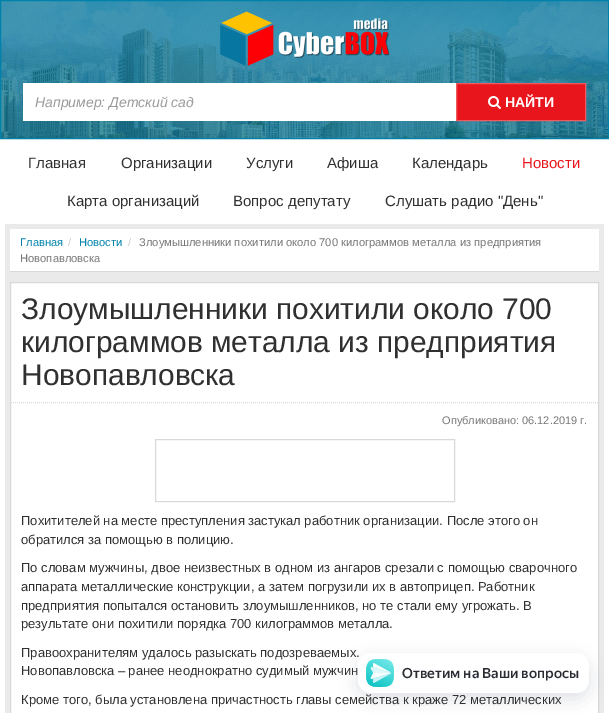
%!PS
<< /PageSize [609 713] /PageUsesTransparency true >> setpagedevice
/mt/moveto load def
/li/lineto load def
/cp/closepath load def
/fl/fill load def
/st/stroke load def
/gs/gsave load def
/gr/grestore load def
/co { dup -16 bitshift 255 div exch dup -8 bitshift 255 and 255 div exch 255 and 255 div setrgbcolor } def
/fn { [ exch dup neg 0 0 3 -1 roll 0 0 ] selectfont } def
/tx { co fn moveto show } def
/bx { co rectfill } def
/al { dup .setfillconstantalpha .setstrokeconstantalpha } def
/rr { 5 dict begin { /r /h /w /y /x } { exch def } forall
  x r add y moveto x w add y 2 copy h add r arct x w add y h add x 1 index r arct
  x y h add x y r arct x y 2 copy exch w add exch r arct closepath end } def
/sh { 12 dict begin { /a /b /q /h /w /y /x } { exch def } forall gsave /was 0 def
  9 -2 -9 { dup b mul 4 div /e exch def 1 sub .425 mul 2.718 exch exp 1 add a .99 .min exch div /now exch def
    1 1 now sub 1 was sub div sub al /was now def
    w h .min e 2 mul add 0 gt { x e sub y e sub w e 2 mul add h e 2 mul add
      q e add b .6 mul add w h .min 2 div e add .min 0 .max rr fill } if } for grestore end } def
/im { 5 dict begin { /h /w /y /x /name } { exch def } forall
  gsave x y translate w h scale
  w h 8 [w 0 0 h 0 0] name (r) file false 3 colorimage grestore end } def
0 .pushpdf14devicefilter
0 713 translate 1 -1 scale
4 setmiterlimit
0 0 609 713 16#FFFFFF bx
(media/1.raw) 1 1 607 137 im
16#0082AB co
.5 .5 608 138 rectstroke
(media/2.raw) 220 11 169 55 im
23 83 433 38 16#FFFFFF bx
16#E9151C co
456.5 83.5 mt 585.5 83.5 li 585.5 120.5 li 456.5 120.5 li cp gs fl gr
16#F05A5F co
st
(media/3.raw) 488 96 13 13 im
5 224 599 489 16#EAEAEA bx
10 229 589 42 16#FFFFFF bx
10 271 589 1 16#D9D9D9 bx
16#FFFFFF co
10.5 282.5 mt 598.5 282.5 li 598.5 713.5 li 10.5 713.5 li cp gs fl gr
16#D9D9D9 co
st
[1 1] 0 setdash
11 402.5 mt 598 402.5 li st
[] 0 setdash
155.5 439.5 299 62 rectstroke
16#0E152F co
358 659 231 40 13 9 .13 sh
(Например: Детский сад) 35 107 /LiberationSans-Italic 14 16#999999 tx
(НАЙТИ) 505 107 /LiberationSans-Bold 14 16#FFFFFF tx
(Главная) 28 168 /LiberationSans-Regular 15 16#303030 tx
(Организации) 121 168 /LiberationSans-Regular 15 16#303030 tx
(Услуги) 246 168 /LiberationSans-Regular 15 16#303030 tx
(Афиша) 327 168 /LiberationSans-Regular 15 16#303030 tx
(Календарь) 412 168 /LiberationSans-Regular 15 16#303030 tx
(Новости) 522 168 /LiberationSans-Regular 15 16#E9151C tx
(Карта организаций) 67 206 /LiberationSans-Regular 15 16#303030 tx
(Вопрос депутату) 233 206 /LiberationSans-Regular 15 16#303030 tx
(Слушать радио "День") 385 206 /LiberationSans-Regular 15 16#303030 tx
(Главная) 20 246 /LiberationSans-Regular 11.2 16#0082AB tx
(/) 68 246 /LiberationSans-Regular 11.2 16#CCCCCC tx
(Новости) 79 246 /LiberationSans-Regular 11.2 16#0082AB tx
(/) 128 246 /LiberationSans-Regular 11.2 16#CCCCCC tx
(Злоумышленники похитили около 700 килограммов металла из предприятия) 139 246 /LiberationSans-Regular 11.2 16#777777 tx
(Новопавловска) 20 262 /LiberationSans-Regular 11.2 16#777777 tx
(Злоумышленники похитили около 700) 21 319 /LiberationSans-Regular 29.9 16#303030 tx
(килограммов металла из предприятия) 21 352 /LiberationSans-Regular 29.9 16#303030 tx
(Новопавловска) 21 385 /LiberationSans-Regular 29.9 16#303030 tx
(Опубликовано: 06.12.2019 г.) 442 424 /LiberationSans-Regular 11 16#777777 tx
(Похитителей на месте преступления застукал работник организации. После этого он) 21 525 /LiberationSans-Regular 13 16#303030 tx
(обратился за помощью в полицию.) 21 544 /LiberationSans-Regular 13 16#303030 tx
(По словам мужчины, двое неизвестных в одном из ангаров срезали с помощью сварочного) 21 572 /LiberationSans-Regular 13 16#303030 tx
(аппарата металлические конструкции, а затем погрузили их в автоприцеп. Работник) 21 591 /LiberationSans-Regular 13 16#303030 tx
(предприятия попытался остановить злоумышленников, но те стали ему угрожать. В) 21 610 /LiberationSans-Regular 13 16#303030 tx
(результате они похитили порядка 700 килограммов металла.) 21 628 /LiberationSans-Regular 13 16#303030 tx
(Правоохранителям удалось разыскать подозреваемых.) 21 657 /LiberationSans-Regular 13 16#303030 tx
(Новопавловска – ранее неоднократно судимый мужчин) 21 675 /LiberationSans-Regular 13 16#303030 tx
(Кроме того, была установлена причастность главы семейства к краже 72 металлических) 21 704 /LiberationSans-Regular 13 16#303030 tx
16#FFFFFF co
358 653 231 40 13 rr fl
(media/4.raw) 366 659 28 28 im
(Ответим на Ваши вопросы) 402 678 /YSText-Medium 14 16#292C33 tx
.poppdf14devicefilter showpage
